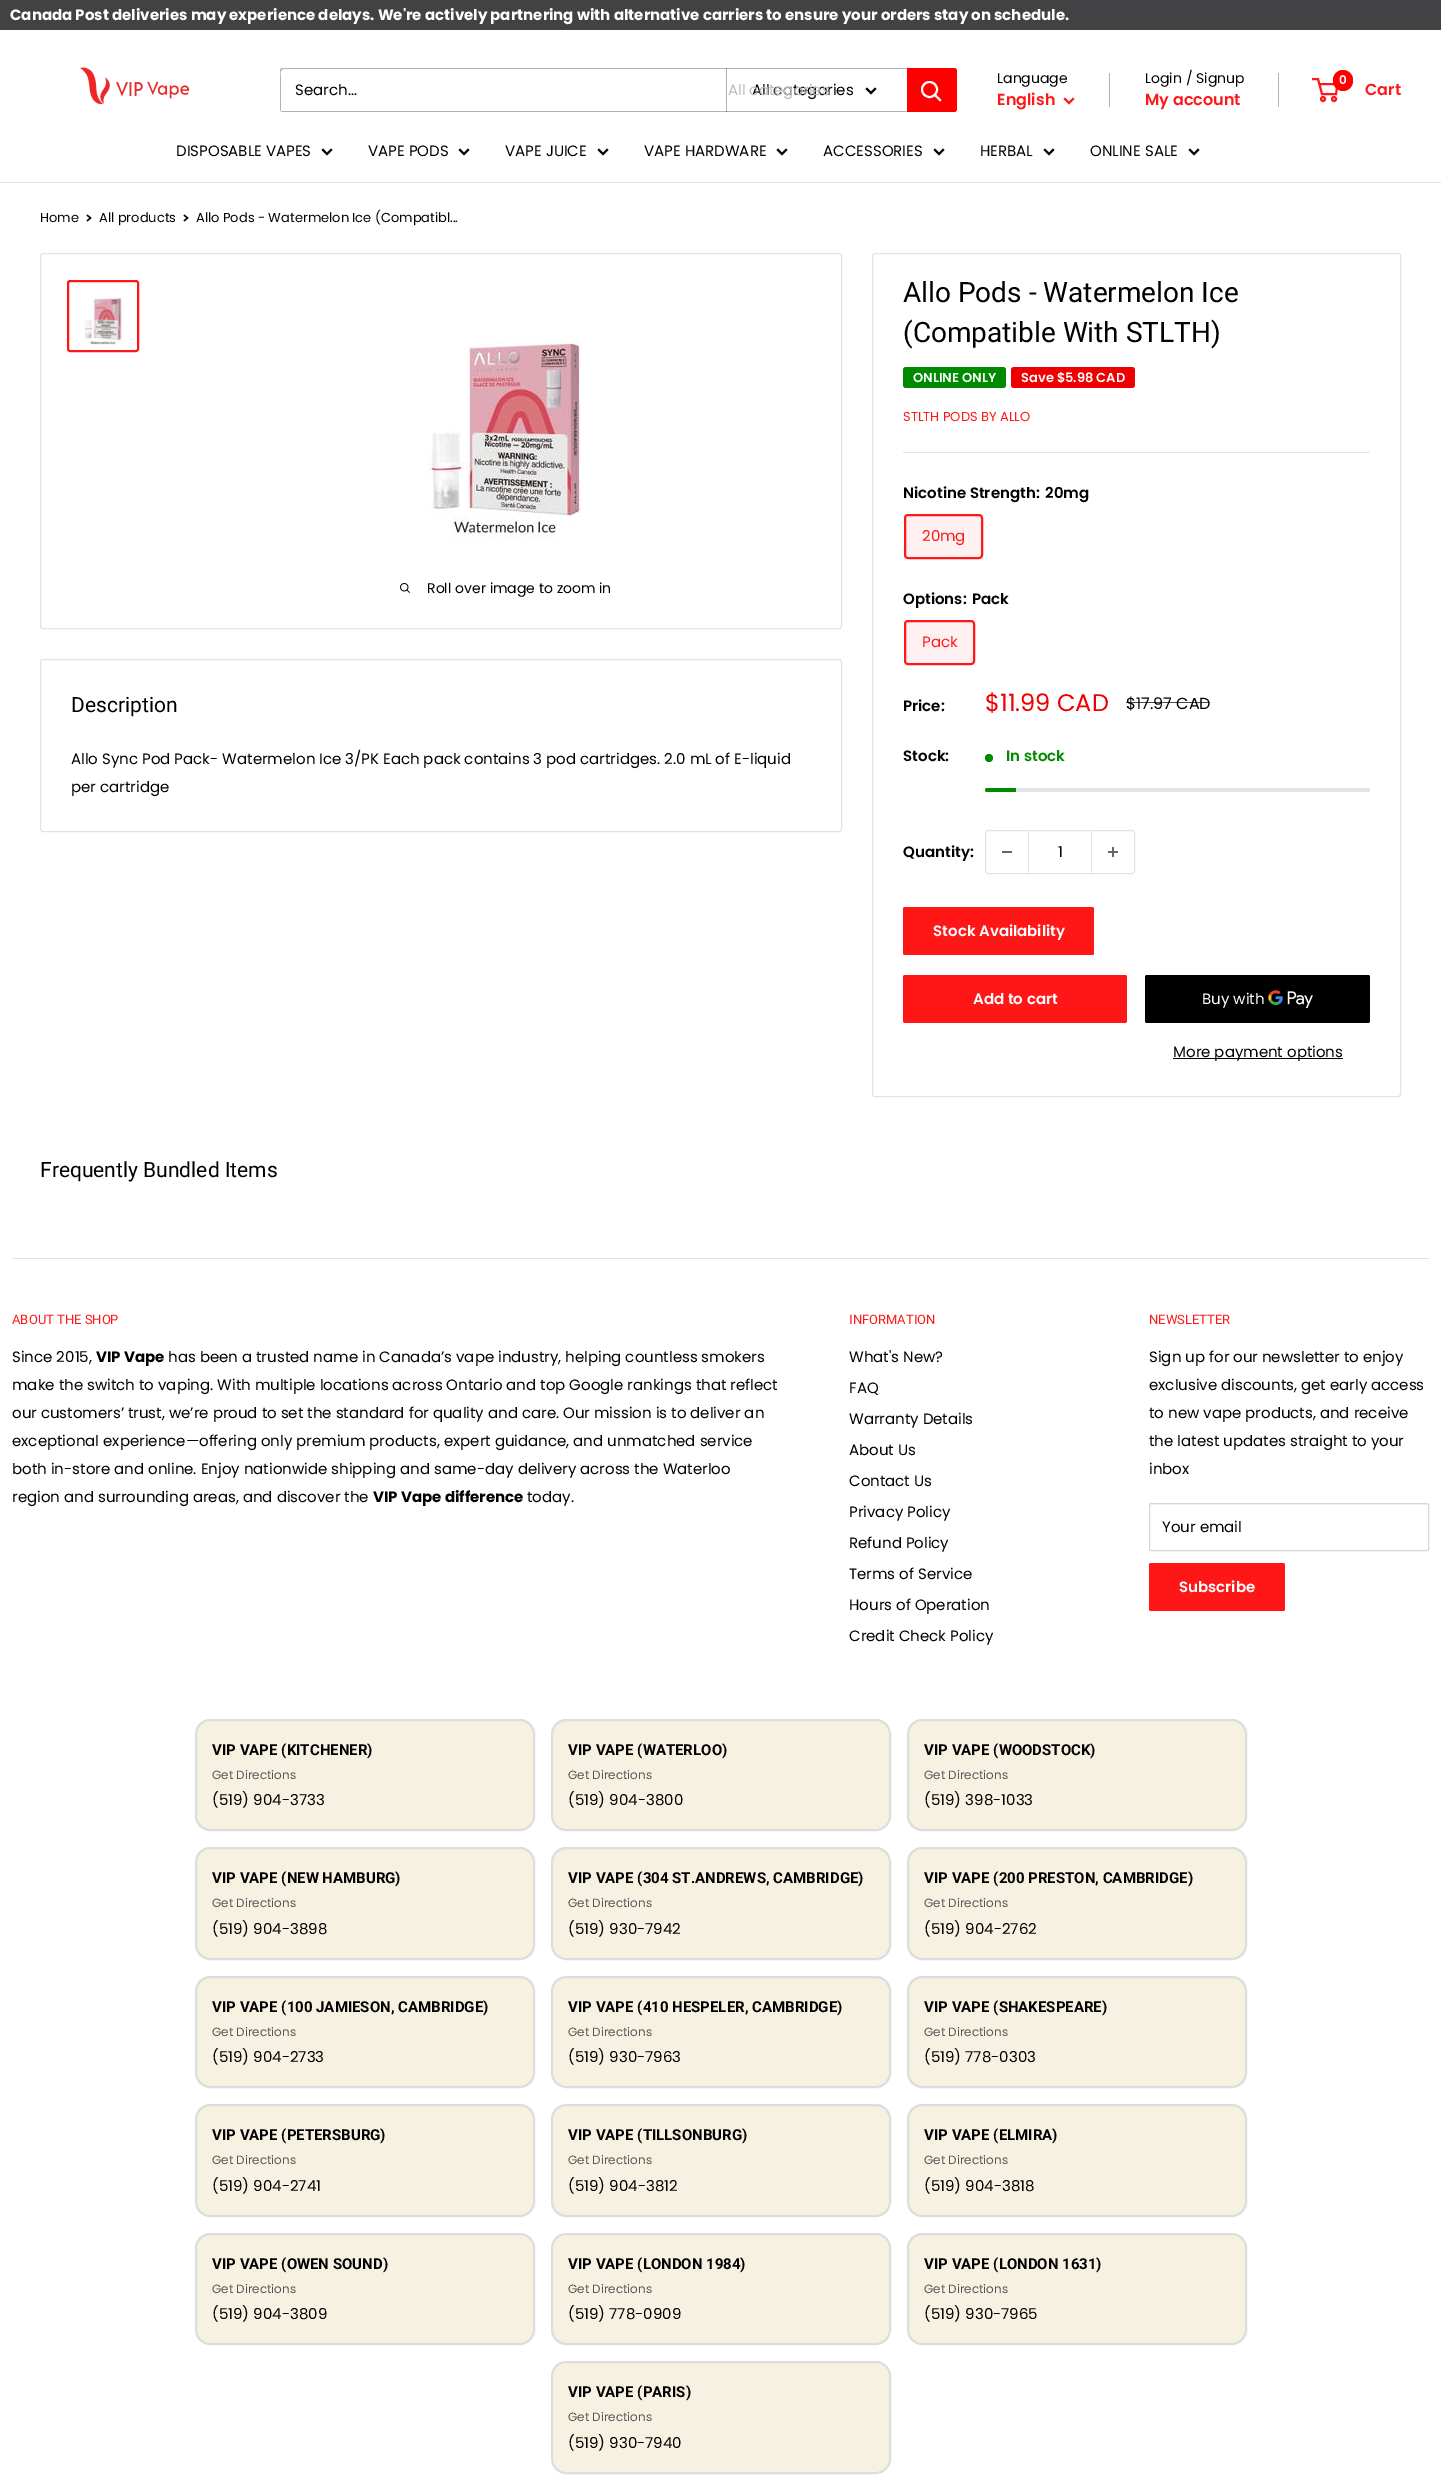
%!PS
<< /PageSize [1441 2490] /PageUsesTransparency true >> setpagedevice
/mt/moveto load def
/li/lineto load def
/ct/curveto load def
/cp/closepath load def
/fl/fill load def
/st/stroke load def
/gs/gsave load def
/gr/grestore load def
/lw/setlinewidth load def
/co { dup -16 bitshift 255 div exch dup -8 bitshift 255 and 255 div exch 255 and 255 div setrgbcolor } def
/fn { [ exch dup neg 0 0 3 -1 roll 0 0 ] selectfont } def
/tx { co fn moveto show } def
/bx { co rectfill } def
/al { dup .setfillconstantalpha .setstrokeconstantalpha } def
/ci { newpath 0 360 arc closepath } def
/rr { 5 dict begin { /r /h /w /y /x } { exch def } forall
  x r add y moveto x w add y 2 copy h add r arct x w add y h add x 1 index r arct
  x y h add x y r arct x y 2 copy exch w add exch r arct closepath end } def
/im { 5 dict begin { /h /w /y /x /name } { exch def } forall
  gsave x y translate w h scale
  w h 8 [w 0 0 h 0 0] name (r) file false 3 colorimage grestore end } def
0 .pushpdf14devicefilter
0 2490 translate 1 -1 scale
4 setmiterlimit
0 0 1441 2490 16#FFFFFF bx
0 0 1441 30 16#424245 bx
(media/1.raw) 80 67 110 38 im
16#B3B3B3 co
281 111 mt 281 112 282 112 283 112 ct 954 112 li 956 112 957 111 957 109 ct 957 71 li 957 70 957 69 956 69 ct 956 102 li 956 104 958 111 953 111 ct cp fl
284 69 mt 956 69 li 956 68 955 68 954 68 ct 283 68 li 281 68 280 69 280 71 ct 280 109 li 280 110 280 111 281 111 ct 281 78 li 281 76 279 69 284 69 ct cp fl
0.3 al
726 68 1 44 16#000000 bx
1 al
2 lw
2 setlinecap
875 89 mt 871 93 li 867 89 li st
16#FF0000 co
907 68 mt 954 68 li 955.5 68 957 69.5 957 71 ct 957 109 li 957 110.5 955.5 112 954 112 ct 907 112 li cp fl
16#FFFFFF co
940 100 mt 935 95 li st
0 setlinecap
929.5 89.5 7.5 ci st
16#FF1616 co
2 setlinecap
1073 99 mt 1069 103 li 1065 99 li st
1109 73 1 34 16#B3B3B3 bx
1278 73 1 34 16#B3B3B3 bx
16#FF1616 co
0 setlinecap
1323 99 2 ci st
1334 99 2 ci st
1319.5 84 mt 1337.5 84 li 1336 94 li 1322 94 li 1318 79 li 1312 79 li st
16#FF0000 co
1333 70 20 21 10 rr fl
0 182 1441 1 16#E1E3E4 bx
16#000000 co
2 setlinecap
331 150 mt 327 154 li 323 150 li st
468 150 mt 464 154 li 460 150 li st
607 150 mt 603 154 li 599 150 li st
786 150 mt 782 154 li 778 150 li st
943 150 mt 939 154 li 935 150 li st
1053 150 mt 1049 154 li 1045 150 li st
1198 150 mt 1194 154 li 1190 150 li st
1.3 lw
87.5 215.5 mt 90.5 218 li 87.5 220.5 li st
184.5 215.5 mt 187.5 218 li 184.5 220.5 li st
16#E1E3E4 co
1 lw
0 setlinecap
40.5 253.5 801 375 2.5 rr st
16#FF1616 co
2 lw
68 281 70 70 2 rr st
(media/2.raw) 84 297 38 48 im
(media/3.raw) 428 340 153 200 im
(media/4.raw) 400 583 10 10 im
16#E1E3E4 co
1 lw
872.5 253.5 528 843 2.5 rr st
16#008A00 co
903 367 103 21 3 rr fl
16#EE0000 co
1011 367 124 21 3 rr fl
903 452 467 1 16#E1E3E4 bx
16#FF1616 co
904.5 514.5 78 44 3.5 rr st
0.06 al
905 515 77 43 16#FF1616 bx
1 al
905.5 515.5 76 42 2.5 rr st
904.5 620.5 70 44 3.5 rr st
0.06 al
905 621 69 43 16#FF1616 bx
1 al
905.5 621.5 68 42 2.5 rr st
16#008A00 co
989 758 4 ci fl
16#E1E3E4 co
985 788 385 4 2 rr fl
16#008A00 co
987 788 mt 1016 788 li 1016 792 li 987 792 li 986 792 985 791 985 790 ct 985 789 986 788 987 788 ct cp fl
16#E1E3E4 co
985.5 830.5 149 43 2.5 rr st
1002 851 10 2 16#666666 bx
1029 831 62 1 16#F3F4F4 bx
1091 831 1 42 16#E1E3E4 bx
1028 831 1 42 16#E1E3E4 bx
(media/5.raw) 1108 847 10 10 im
16#FF1616 co
903 907 191 48 2 rr fl
903 975 224 48 2 rr fl
16#000000 co
1145 975 225 48 2 rr fl
(media/6.raw) 1268 990 45 18 im
1173 1058 170 1 16#000000 bx
16#E1E3E4 co
40.5 659.5 801 172 2.5 rr st
12 1258 1417 1 16#E1E3E4 bx
16#F8F8F8 co
1151 1505 mt 1427 1505 li 1428 1505 1428 1505 1428 1506 ct 1428 1505 1428 1504 1427 1504 ct 1151 1504 li 1150 1504 li 1150 1506 li 1150 1505 1150 1505 1151 1505 ct cp fl
16#D4D6D8 co
1149.5 1503.5 279 47 1.5 rr st
16#FF1616 co
1149 1563 136 48 2 rr fl
16#F7F1E1 co
196 1720 338 110 14 rr gs fl gr
16#DDDDDD co
2 lw
st
16#F7F1E1 co
552 1720 338 110 14 rr gs fl gr
16#DDDDDD co
st
16#F7F1E1 co
908 1720 338 110 14 rr gs fl gr
16#DDDDDD co
st
16#F7F1E1 co
196 1848 338 111 14 rr gs fl gr
16#DDDDDD co
st
16#F7F1E1 co
552 1848 338 111 14 rr gs fl gr
16#DDDDDD co
st
16#F7F1E1 co
908 1848 338 111 14 rr gs fl gr
16#DDDDDD co
st
16#F7F1E1 co
196 1977 338 110 14 rr gs fl gr
16#DDDDDD co
st
16#F7F1E1 co
552 1977 338 110 14 rr gs fl gr
16#DDDDDD co
st
16#F7F1E1 co
908 1977 338 110 14 rr gs fl gr
16#DDDDDD co
st
16#F7F1E1 co
196 2105 338 111 14 rr gs fl gr
16#DDDDDD co
st
16#F7F1E1 co
552 2105 338 111 14 rr gs fl gr
16#DDDDDD co
st
16#F7F1E1 co
908 2105 338 111 14 rr gs fl gr
16#DDDDDD co
st
16#F7F1E1 co
196 2234 338 110 14 rr gs fl gr
16#DDDDDD co
st
16#F7F1E1 co
552 2234 338 110 14 rr gs fl gr
16#DDDDDD co
st
16#F7F1E1 co
908 2234 338 110 14 rr gs fl gr
16#DDDDDD co
st
16#F7F1E1 co
552 2362 338 111 14 rr gs fl gr
16#DDDDDD co
st
(Canada Post deliveries may experience delays. We're actively partnering with alternative carriers to ensure your orders stay on schedule.) 10 20 /Poppins-Bold 15 16#FFFFFF tx
(Search...) 295 95 /Poppins-Regular 15 16#000000 tx
(All categories) 752 95 /Poppins-Regular 15 16#000000 tx
(All categories) 728 95 /Poppins-Regular 15 16#BBBBBB tx
(Language) 997 83 /Poppins-Regular 14 16#000000 tx
(English) 997 105 /Poppins-SemiBold 16 16#FF1616 tx
(Login / Signup) 1145 83 /Poppins-Regular 14 16#000000 tx
(My account) 1145 105 /Poppins-SemiBold 16 16#FF1616 tx
(0) 1339 84 /Poppins-SemiBold 12 16#FFFFFF tx
(Cart) 1365 95 /Poppins-SemiBold 16 16#FF1616 tx
(DISPOSABLE VAPES) 176 156 /Poppins-Regular 15 16#000000 tx
(VAPE PODS) 368 156 /Poppins-Regular 15 16#000000 tx
(VAPE JUICE) 505 156 /Poppins-Regular 15 16#000000 tx
(VAPE HARDWARE) 644 156 /Poppins-Regular 15 16#000000 tx
(ACCESSORIES) 823 156 /Poppins-Regular 15 16#000000 tx
(HERBAL) 980 156 /Poppins-Regular 15 16#000000 tx
(ONLINE SALE) 1090 156 /Poppins-Regular 15 16#000000 tx
(Home) 40 222 /Poppins-Regular 13 16#000000 tx
(All products) 99 222 /Poppins-Regular 13 16#000000 tx
(Allo Pods - Watermelon Ice \(Compatibl...) 196 222 /Poppins-Regular 13 16#000000 tx
(Roll over image to zoom in) 427 593 /Poppins-Regular 14 16#000000 tx
(Allo Pods - Watermelon Ice) 903 302 /Roboto-Regular 28 16#000000 tx
(\(Compatible With STLTH\)) 903 342 /Roboto-Regular 28 16#000000 tx
(ONLINE ONLY) 913 382 /Poppins-SemiBold 13 16#FFFFFF tx
(Save $5.98 CAD) 1021 382 /Poppins-SemiBold 13 16#FFFFFF tx
(STLTH PODS BY ALLO) 903 421 /Poppins-Regular 13 16#FF1616 tx
(Nicotine Strength:) 903 498 /Poppins-SemiBold 15 16#000000 tx
(20mg) 1045 498 /Poppins-SemiBold 15 16#000000 tx
(20mg) 922 541 /Poppins-Regular 15 16#FF1616 tx
(Options:) 903 604 /Poppins-SemiBold 15 16#000000 tx
(Pack) 972 604 /Poppins-SemiBold 15 16#000000 tx
(Pack) 922 647 /Poppins-Regular 15 16#FF1616 tx
(Price:) 903 711 /Poppins-SemiBold 15 16#000000 tx
($11.99 CAD) 985 711 /Poppins-Regular 24 16#EE0000 tx
($17.97 CAD) 1126 709 /Poppins-Regular 16 16#000000 tx
0.7 al
1126 702 84 1 16#000000 bx
1 al
(Stock:) 903 761 /Poppins-SemiBold 15 16#000000 tx
(In stock) 1006 761 /Poppins-SemiBold 15 16#008A00 tx
(Quantity:) 903 857 /Poppins-SemiBold 15 16#000000 tx
(1) 1058 857 /Poppins-Regular 15 16#000000 tx
(Stock Availability) 933 936 /Poppins-SemiBold 15 16#FFFFFF tx
(Add to cart) 973 1004 /Poppins-SemiBold 15 16#FFFFFF tx
(Buy with) 1202 1004 /Poppins-Regular 15 16#FFFFFF tx
(More payment options) 1173 1057 /Poppins-Regular 15 16#000000 tx
(Description) 71 712 /Roboto-Regular 21 16#000000 tx
(Allo Sync Pod Pack- Watermelon Ice 3/PK Each pack contains 3 pod cartridges. 2.0 mL of E-liquid) 71 764 /Poppins-Regular 15 16#000000 tx
(per cartridge) 71 792 /Poppins-Regular 15 16#000000 tx
(Frequently Bundled Items) 40 1177 /Roboto-Regular 21 16#000000 tx
(ABOUT THE SHOP) 12 1324 /Roboto-Regular 13 16#FF1616 tx
(Since 2015,) 12 1362 /Poppins-Regular 15 16#000000 tx
(VIP Vape) 96 1362 /Poppins-Bold 15 16#000000 tx
(has been a trusted name in Canada’s vape industry, helping countless smokers) 168 1362 /Poppins-Regular 15 16#000000 tx
(make the switch to vaping. With multiple locations across Ontario and top Google rankings that reflect) 12 1390 /Poppins-Regular 15 16#000000 tx
(our customers’ trust, we’re proud to set the standard for quality and care. Our mission is to deliver an) 12 1418 /Poppins-Regular 15 16#000000 tx
(exceptional experience—offering only premium products, expert guidance, and unmatched service) 12 1446 /Poppins-Regular 15 16#000000 tx
(both in-store and online. Enjoy nationwide shipping and same-day delivery across the Waterloo) 12 1474 /Poppins-Regular 15 16#000000 tx
(region and surrounding areas, and discover the) 12 1502 /Poppins-Regular 15 16#000000 tx
(VIP Vape difference) 373 1502 /Poppins-Bold 15 16#000000 tx
(today.) 527 1502 /Poppins-Regular 15 16#000000 tx
(INFORMATION) 849 1324 /Roboto-Regular 13 16#FF1616 tx
(What's New?) 849 1362 /Poppins-Regular 15 16#000000 tx
(FAQ) 849 1393 /Poppins-Regular 15 16#000000 tx
(Warranty Details) 849 1424 /Poppins-Regular 15 16#000000 tx
(About Us) 849 1455 /Poppins-Regular 15 16#000000 tx
(Contact Us) 849 1486 /Poppins-Regular 15 16#000000 tx
(Privacy Policy) 849 1517 /Poppins-Regular 15 16#000000 tx
(Refund Policy) 849 1548 /Poppins-Regular 15 16#000000 tx
(Terms of Service) 849 1579 /Poppins-Regular 15 16#000000 tx
(Hours of Operation) 849 1610 /Poppins-Regular 15 16#000000 tx
(Credit Check Policy) 849 1641 /Poppins-Regular 15 16#000000 tx
(NEWSLETTER) 1149 1324 /Roboto-Regular 13 16#FF1616 tx
(Sign up for our newsletter to enjoy) 1149 1362 /Poppins-Regular 15 16#000000 tx
(exclusive discounts, get early access) 1149 1390 /Poppins-Regular 15 16#000000 tx
(to new vape products, and receive) 1149 1418 /Poppins-Regular 15 16#000000 tx
(the latest updates straight to your) 1149 1446 /Poppins-Regular 15 16#000000 tx
(inbox) 1149 1474 /Poppins-Regular 15 16#000000 tx
(Your email) 1162 1532 /Poppins-Regular 15 16#000000 tx
(Subscribe) 1179 1592 /Poppins-SemiBold 15 16#FFFFFF tx
(VIP VAPE \(KITCHENER\)) 212 1755 /Roboto-Bold 15 16#000000 tx
(Get Directions) 212 1779 /Poppins-Regular 12 16#555555 tx
(\(519\) 904-3733) 212 1805 /Poppins-Regular 15 16#000000 tx
(VIP VAPE \(WATERLOO\)) 568 1755 /Roboto-Bold 15 16#000000 tx
(Get Directions) 568 1779 /Poppins-Regular 12 16#555555 tx
(\(519\) 904-3800) 568 1805 /Poppins-Regular 15 16#000000 tx
(VIP VAPE \(WOODSTOCK\)) 924 1755 /Roboto-Bold 15 16#000000 tx
(Get Directions) 924 1779 /Poppins-Regular 12 16#555555 tx
(\(519\) 398-1033) 924 1805 /Poppins-Regular 15 16#000000 tx
(VIP VAPE \(NEW HAMBURG\)) 212 1883 /Roboto-Bold 15 16#000000 tx
(Get Directions) 212 1907 /Poppins-Regular 12 16#555555 tx
(\(519\) 904-3898) 212 1934 /Poppins-Regular 15 16#000000 tx
(VIP VAPE \(304 ST.ANDREWS, CAMBRIDGE\)) 568 1883 /Roboto-Bold 15 16#000000 tx
(Get Directions) 568 1907 /Poppins-Regular 12 16#555555 tx
(\(519\) 930-7942) 568 1934 /Poppins-Regular 15 16#000000 tx
(VIP VAPE \(200 PRESTON, CAMBRIDGE\)) 924 1883 /Roboto-Bold 15 16#000000 tx
(Get Directions) 924 1907 /Poppins-Regular 12 16#555555 tx
(\(519\) 904-2762) 924 1934 /Poppins-Regular 15 16#000000 tx
(VIP VAPE \(100 JAMIESON, CAMBRIDGE\)) 212 2012 /Roboto-Bold 15 16#000000 tx
(Get Directions) 212 2036 /Poppins-Regular 12 16#555555 tx
(\(519\) 904-2733) 212 2062 /Poppins-Regular 15 16#000000 tx
(VIP VAPE \(410 HESPELER, CAMBRIDGE\)) 568 2012 /Roboto-Bold 15 16#000000 tx
(Get Directions) 568 2036 /Poppins-Regular 12 16#555555 tx
(\(519\) 930-7963) 568 2062 /Poppins-Regular 15 16#000000 tx
(VIP VAPE \(SHAKESPEARE\)) 924 2012 /Roboto-Bold 15 16#000000 tx
(Get Directions) 924 2036 /Poppins-Regular 12 16#555555 tx
(\(519\) 778-0303) 924 2062 /Poppins-Regular 15 16#000000 tx
(VIP VAPE \(PETERSBURG\)) 212 2140 /Roboto-Bold 15 16#000000 tx
(Get Directions) 212 2164 /Poppins-Regular 12 16#555555 tx
(\(519\) 904-2741) 212 2191 /Poppins-Regular 15 16#000000 tx
(VIP VAPE \(TILLSONBURG\)) 568 2140 /Roboto-Bold 15 16#000000 tx
(Get Directions) 568 2164 /Poppins-Regular 12 16#555555 tx
(\(519\) 904-3812) 568 2191 /Poppins-Regular 15 16#000000 tx
(VIP VAPE \(ELMIRA\)) 924 2140 /Roboto-Bold 15 16#000000 tx
(Get Directions) 924 2164 /Poppins-Regular 12 16#555555 tx
(\(519\) 904-3818) 924 2191 /Poppins-Regular 15 16#000000 tx
(VIP VAPE \(OWEN SOUND\)) 212 2269 /Roboto-Bold 15 16#000000 tx
(Get Directions) 212 2293 /Poppins-Regular 12 16#555555 tx
(\(519\) 904-3809) 212 2319 /Poppins-Regular 15 16#000000 tx
(VIP VAPE \(LONDON 1984\)) 568 2269 /Roboto-Bold 15 16#000000 tx
(Get Directions) 568 2293 /Poppins-Regular 12 16#555555 tx
(\(519\) 778-0909) 568 2319 /Poppins-Regular 15 16#000000 tx
(VIP VAPE \(LONDON 1631\)) 924 2269 /Roboto-Bold 15 16#000000 tx
(Get Directions) 924 2293 /Poppins-Regular 12 16#555555 tx
(\(519\) 930-7965) 924 2319 /Poppins-Regular 15 16#000000 tx
(VIP VAPE \(PARIS\)) 568 2397 /Roboto-Bold 15 16#000000 tx
(Get Directions) 568 2421 /Poppins-Regular 12 16#555555 tx
(\(519\) 930-7940) 568 2448 /Poppins-Regular 15 16#000000 tx
.poppdf14devicefilter showpage
